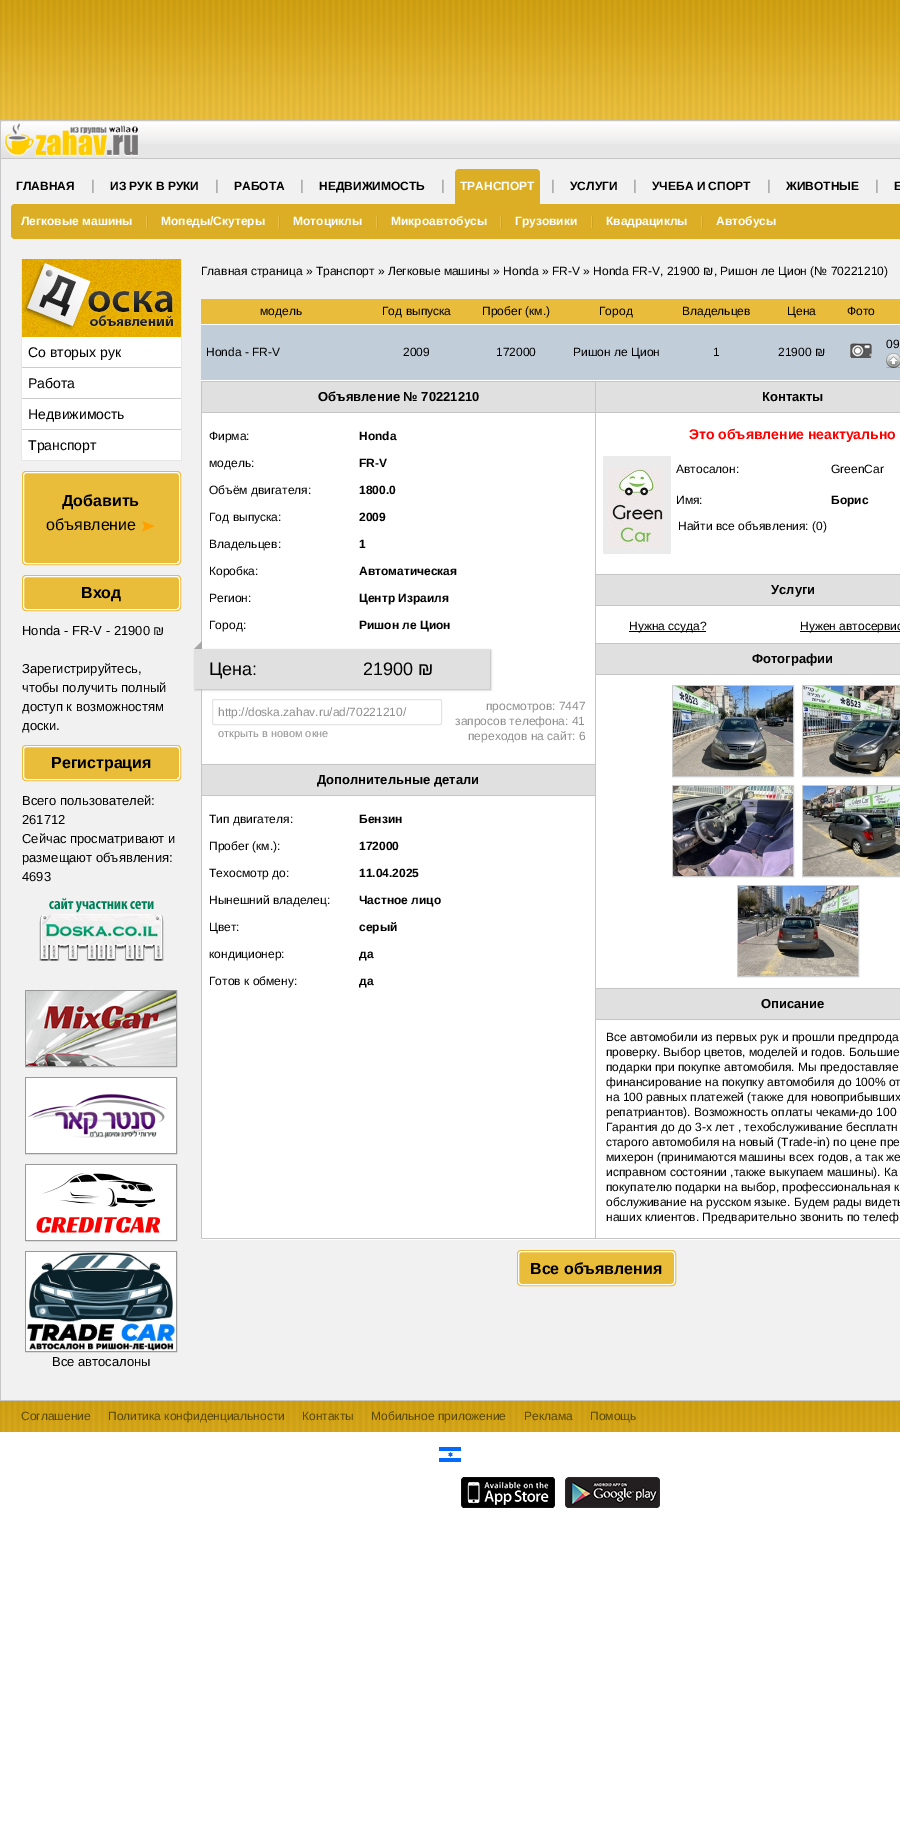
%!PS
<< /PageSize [900 1838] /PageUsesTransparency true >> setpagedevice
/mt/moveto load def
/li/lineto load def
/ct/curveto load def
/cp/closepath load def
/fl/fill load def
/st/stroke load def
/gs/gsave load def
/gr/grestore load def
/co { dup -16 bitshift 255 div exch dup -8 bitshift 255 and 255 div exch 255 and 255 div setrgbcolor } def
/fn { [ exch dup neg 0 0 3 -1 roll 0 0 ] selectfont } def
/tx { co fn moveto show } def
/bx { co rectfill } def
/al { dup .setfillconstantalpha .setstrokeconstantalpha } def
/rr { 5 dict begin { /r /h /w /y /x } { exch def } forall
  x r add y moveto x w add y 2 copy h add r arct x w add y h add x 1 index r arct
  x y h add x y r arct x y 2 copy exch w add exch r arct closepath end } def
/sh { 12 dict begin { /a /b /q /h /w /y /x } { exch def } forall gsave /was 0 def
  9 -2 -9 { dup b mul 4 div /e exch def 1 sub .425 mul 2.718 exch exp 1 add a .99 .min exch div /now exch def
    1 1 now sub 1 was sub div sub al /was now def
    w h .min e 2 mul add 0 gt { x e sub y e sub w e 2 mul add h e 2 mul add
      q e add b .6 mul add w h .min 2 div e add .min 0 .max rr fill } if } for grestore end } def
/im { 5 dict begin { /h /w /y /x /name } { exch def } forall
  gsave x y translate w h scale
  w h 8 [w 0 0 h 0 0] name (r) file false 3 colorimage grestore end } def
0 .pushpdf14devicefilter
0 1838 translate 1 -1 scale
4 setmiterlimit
0 0 900 1838 16#FFFFFF bx
(media/1.raw) 0 0 900 120 im
138 144 762 14 16#E6E6E6 bx
(media/2.raw) 1 121 899 23 im
16#C6C6C6 co
.5 120.5 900 38 rectstroke
(media/3.raw) 1 123 137 35 im
1 159 899 1241 16#F1F1F1 bx
0 159 1 80 16#C6C6C6 bx
16#DCAE25 co
459 169 mt 536 169 li 538 169 540 171 540 173 ct 540 204 li 455 204 li 455 173 li 455 171 457 169 459 169 ct cp fl
11 204 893 35 4 rr fl
147 216 1 12 16#CEA322 bx
146 216 1 12 16#E9C044 bx
279 216 1 12 16#CEA322 bx
278 216 1 12 16#E9C044 bx
377 216 1 12 16#CEA322 bx
376 216 1 12 16#E9C044 bx
501 216 1 12 16#CEA322 bx
500 216 1 12 16#E9C044 bx
592 216 1 12 16#CEA322 bx
591 216 1 12 16#E9C044 bx
702 216 1 12 16#CEA322 bx
701 216 1 12 16#E9C044 bx
0 1400 900 1 16#C6C6C6 bx
0 239 1 1162 16#C6C6C6 bx
22 337 159 123 16#FFFFFF bx
181 259 1 202 16#E7E7E7 bx
21 460 161 1 16#E7E7E7 bx
21 259 1 202 16#E7E7E7 bx
(media/4.raw) 22 259 159 78 im
22 367 159 1 16#CCCCCC bx
22 398 159 1 16#CCCCCC bx
22 429 159 1 16#CCCCCC bx
16#E9BC3A co
22.5 471.5 158 93 3.5 rr st
23.5 472.5 156 91 3.5 rr gs fl gr
16#FFFFFF co
st
(media/5.raw) 142 521 13 11 im
16#E9BC3A co
22.5 575.5 158 35 3.5 rr st
23.5 576.5 156 33 3.5 rr gs fl gr
16#FFFFFF co
st
16#E9BC3A co
22.5 745.5 158 35 3.5 rr st
23.5 746.5 156 33 3.5 rr gs fl gr
16#FFFFFF co
st
(media/6.raw) 39 898 125 63 im
16#999999 co
25.5 990.5 151 76 rectstroke
(media/7.raw) 26 991 150 75 im
25.5 1077.5 151 76 rectstroke
(media/8.raw) 26 1078 150 75 im
25.5 1164.5 151 76 rectstroke
(media/9.raw) 26 1165 150 75 im
25.5 1251.5 151 100 rectstroke
(media/10.raw) 26 1252 150 99 im
201 324 699 1 16#FFFFFF bx
201 299 699 25 16#EABC3B bx
201 380 699 1 16#FFFFFF bx
201 325 699 55 16#C1CEDA bx
(media/11.raw) 850 343 22 15 im
(media/12.raw) 886 353 14 15 im
201 413 699 827 16#FFFFFF bx
595 1238 305 1 16#C5C5C5 bx
595 381 1 858 16#C5C5C5 bx
201 1238 395 1 16#C5C5C5 bx
201 381 1 858 16#C5C5C5 bx
202 382 393 30 16#E0E0E0 bx
202 381 393 1 16#C5C5C5 bx
202 412 393 1 16#C5C5C5 bx
16#B3B3B3 co
195 650 296 40 0 1 1 sh
194 649 296 40 16#E0E0E0 bx
16#A7A7A7 co
202 649 mt 194 649 li 202 641 li cp fl
16#E4E4E4 co
212.5 699.5 229 25 1.5 rr st
202 765 393 30 16#E0E0E0 bx
202 764 393 1 16#C5C5C5 bx
202 795 393 1 16#C5C5C5 bx
596 382 304 30 16#E0E0E0 bx
596 381 304 1 16#C5C5C5 bx
596 412 304 1 16#C5C5C5 bx
16#EBEBEB co
603 456 68 98 2 rr fl
(media/13.raw) 607 468 56 80 im
596 575 304 30 16#E0E0E0 bx
596 574 304 1 16#C5C5C5 bx
596 605 304 1 16#C5C5C5 bx
629 631 77 1 16#000000 bx
800 631 100 1 16#000000 bx
596 644 304 30 16#E0E0E0 bx
596 643 304 1 16#C5C5C5 bx
596 674 304 1 16#C5C5C5 bx
16#CCCCCC co
672.5 685.5 121 91 rectstroke
(media/14.raw) 673 686 120 90 im
802.5 685.5 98 91 rectstroke
(media/15.raw) 803 686 97 90 im
672.5 785.5 121 91 rectstroke
(media/16.raw) 673 786 120 90 im
802.5 785.5 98 91 rectstroke
(media/17.raw) 803 786 97 90 im
737.5 885.5 121 91 rectstroke
(media/18.raw) 738 886 120 90 im
596 989 304 30 16#E0E0E0 bx
596 988 304 1 16#C5C5C5 bx
596 1019 304 1 16#C5C5C5 bx
16#E9BC3A co
517.5 1250.5 158 35 3.5 rr st
518.5 1251.5 156 33 3.5 rr gs fl gr
16#FFFFFF co
st
(media/19.raw) 0 1401 900 31 im
(media/20.raw) 439 1447 22 15 im
(media/21.raw) 461 1477 94 31 im
(media/22.raw) 565 1477 95 31 im
(ГЛАВНАЯ) 16 190 /LiberationSans-Bold 12 16#000000 tx
(|) 91 190 /LiberationSans-Regular 14 16#979797 tx
(ИЗ РУК В РУКИ) 110 190 /LiberationSans-Bold 12 16#000000 tx
(|) 215 190 /LiberationSans-Regular 14 16#979797 tx
(РАБОТА) 234 190 /LiberationSans-Bold 12 16#000000 tx
(|) 300 190 /LiberationSans-Regular 14 16#979797 tx
(НЕДВИЖИМОСТЬ) 319 190 /LiberationSans-Bold 12 16#000000 tx
(|) 441 190 /LiberationSans-Regular 14 16#979797 tx
(ТРАНСПОРТ) 460 190 /LiberationSans-Bold 12 16#FFFFFF tx
(|) 551 190 /LiberationSans-Regular 14 16#979797 tx
(УСЛУГИ) 570 190 /LiberationSans-Bold 12 16#000000 tx
(|) 633 190 /LiberationSans-Regular 14 16#979797 tx
(УЧЕБА И СПОРТ) 652 190 /LiberationSans-Bold 12 16#000000 tx
(|) 767 190 /LiberationSans-Regular 14 16#979797 tx
(ЖИВОТНЫЕ) 786 190 /LiberationSans-Bold 12 16#000000 tx
(|) 875 190 /LiberationSans-Regular 14 16#979797 tx
(Е) 894 190 /LiberationSans-Bold 12 16#000000 tx
(Легковые машины) 21 225 /LiberationSans-Bold 12 16#FFFFFF tx
(Мопеды/Скутеры) 161 225 /LiberationSans-Bold 12 16#FFFFFF tx
(Мотоциклы) 293 225 /LiberationSans-Bold 12 16#FFFFFF tx
(Микроавтобусы) 391 225 /LiberationSans-Bold 12 16#FFFFFF tx
(Грузовики) 515 225 /LiberationSans-Bold 12 16#FFFFFF tx
(Квадрациклы) 606 225 /LiberationSans-Bold 12 16#FFFFFF tx
(Автобусы) 716 225 /LiberationSans-Bold 12 16#FFFFFF tx
(Со вторых рук) 28 357 /LiberationSans-Regular 14 16#000000 tx
(Работа) 28 388 /LiberationSans-Regular 14 16#000000 tx
(Недвижимость) 28 419 /LiberationSans-Regular 14 16#000000 tx
(Транспорт) 28 450 /LiberationSans-Regular 14 16#000000 tx
(Добавить) 62 506 /LiberationSans-Bold 16 16#000000 tx
(объявление) 46 530 /LiberationSans-Regular 16 16#000000 tx
(Вход) 81 598 /LiberationSans-Bold 16 16#000000 tx
(Honda - FR-V - 21900 ₪) 22 635 /LiberationSans-Regular 13 16#000000 tx
(Зарегистрируйтесь,) 22 673 /LiberationSans-Regular 13 16#000000 tx
(чтобы получить полный) 22 692 /LiberationSans-Regular 13 16#000000 tx
(доступ к возможностям) 22 711 /LiberationSans-Regular 13 16#000000 tx
(доски.) 22 730 /LiberationSans-Regular 13 16#000000 tx
(Регистрация) 51 768 /LiberationSans-Bold 16 16#000000 tx
(Всего пользователей:) 22 805 /LiberationSans-Regular 13 16#000000 tx
(261712) 22 824 /LiberationSans-Regular 13 16#000000 tx
(Сейчас просматривают и) 22 843 /LiberationSans-Regular 13 16#000000 tx
(размещают объявления:) 22 862 /LiberationSans-Regular 13 16#000000 tx
(4693) 22 881 /LiberationSans-Regular 13 16#000000 tx
(Все автосалоны) 52 1366 /LiberationSans-Regular 13 16#000000 tx
(Главная страница » Транспорт » Легковые машины » Honda » FR-V » Honda FR-V, 21900 ₪, Ришон ле Цион \(№ 70221210\)) 201 275 /LiberationSans-Regular 12 16#000000 tx
(модель) 260 315 /LiberationSans-Regular 12 16#000000 tx
(Год выпуска) 382 315 /LiberationSans-Regular 12 16#000000 tx
(Пробег \(км.\)) 482 315 /LiberationSans-Regular 12 16#000000 tx
(Город) 599 315 /LiberationSans-Regular 12 16#000000 tx
(Владельцев) 682 315 /LiberationSans-Regular 12 16#000000 tx
(Цена) 787 315 /LiberationSans-Regular 12 16#000000 tx
(Фото) 847 315 /LiberationSans-Regular 12 16#000000 tx
(Honda - FR-V) 206 356 /LiberationSans-Regular 12 16#000000 tx
(2009) 403 356 /LiberationSans-Regular 12 16#000000 tx
(172000) 496 356 /LiberationSans-Regular 12 16#000000 tx
(Ришон ле Цион) 573 356 /LiberationSans-Regular 12 16#000000 tx
(1) 713 356 /LiberationSans-Regular 12 16#000000 tx
(21900 ₪) 778 356 /LiberationSans-Regular 12 16#000000 tx
(09) 886 348 /LiberationSans-Regular 12 16#000000 tx
(Объявление № 70221210) 318 401 /LiberationSans-Bold 13 16#000000 tx
(Фирма:) 209 440 /LiberationSans-Regular 12 16#000000 tx
(Honda) 359 440 /LiberationSans-Bold 12 16#000000 tx
(модель:) 209 467 /LiberationSans-Regular 12 16#000000 tx
(FR-V) 359 467 /LiberationSans-Bold 12 16#000000 tx
(Объём двигателя:) 209 494 /LiberationSans-Regular 12 16#000000 tx
(1800.0) 359 494 /LiberationSans-Bold 12 16#000000 tx
(Год выпуска:) 209 521 /LiberationSans-Regular 12 16#000000 tx
(2009) 359 521 /LiberationSans-Bold 12 16#000000 tx
(Владельцев:) 209 548 /LiberationSans-Regular 12 16#000000 tx
(1) 359 548 /LiberationSans-Bold 12 16#000000 tx
(Коробка:) 209 575 /LiberationSans-Regular 12 16#000000 tx
(Автоматическая) 359 575 /LiberationSans-Bold 12 16#000000 tx
(Регион:) 209 602 /LiberationSans-Regular 12 16#000000 tx
(Центр Израиля) 359 602 /LiberationSans-Bold 12 16#000000 tx
(Город:) 209 629 /LiberationSans-Regular 12 16#000000 tx
(Ришон ле Цион) 359 629 /LiberationSans-Bold 12 16#000000 tx
(Цена:) 209 675 /LiberationSans-Regular 18 16#000000 tx
(21900 ₪) 363 675 /LiberationSans-Regular 18 16#000000 tx
(http://doska.zahav.ru/ad/70221210/) 218 716 /LiberationSans-Regular 12 16#8F8F8F tx
(открыть в новом окне) 218 737 /LiberationSans-Regular 11 16#8F8F8F tx
(просмотров: 7447) 486 710 /LiberationSans-Regular 12 16#8F8F8F tx
(запросов телефона: 41) 455 725 /LiberationSans-Regular 12 16#8F8F8F tx
(переходов на сайт: 6) 468 740 /LiberationSans-Regular 12 16#8F8F8F tx
(Дополнительные детали) 317 784 /LiberationSans-Bold 13 16#000000 tx
(Тип двигателя:) 209 823 /LiberationSans-Regular 12 16#000000 tx
(Бензин) 359 823 /LiberationSans-Bold 12 16#000000 tx
(Пробег \(км.\):) 209 850 /LiberationSans-Regular 12 16#000000 tx
(172000) 359 850 /LiberationSans-Bold 12 16#000000 tx
(Техосмотр до:) 209 877 /LiberationSans-Regular 12 16#000000 tx
(11.04.2025) 359 877 /LiberationSans-Bold 12 16#000000 tx
(Нынешний владелец:) 209 904 /LiberationSans-Regular 12 16#000000 tx
(Частное лицо) 359 904 /LiberationSans-Bold 12 16#000000 tx
(Цвет:) 209 931 /LiberationSans-Regular 12 16#000000 tx
(серый) 359 931 /LiberationSans-Bold 12 16#000000 tx
(кондиционер:) 209 958 /LiberationSans-Regular 12 16#000000 tx
(да) 359 958 /LiberationSans-Bold 12 16#000000 tx
(Готов к обмену:) 209 985 /LiberationSans-Regular 12 16#000000 tx
(да) 359 985 /LiberationSans-Bold 12 16#000000 tx
(Контакты) 762 401 /LiberationSans-Bold 13 16#000000 tx
(Это объявление неактуально) 689 439 /LiberationSans-Bold 14 16#FF0000 tx
(Автосалон:) 676 473 /LiberationSans-Regular 12 16#000000 tx
(GreenCar) 831 473 /LiberationSans-Regular 12 16#000000 tx
(Имя:) 676 504 /LiberationSans-Regular 12 16#000000 tx
(Борис) 831 504 /LiberationSans-Bold 12 16#000000 tx
(Найти все объявления: \(0\)) 678 530 /LiberationSans-Regular 12 16#000000 tx
(Услуги) 771 594 /LiberationSans-Bold 13 16#000000 tx
(Нужна ссуда?) 629 630 /LiberationSans-Regular 12 16#000000 tx
(Нужен автосервис) 800 630 /LiberationSans-Regular 12 16#000000 tx
(Фотографии) 752 663 /LiberationSans-Bold 13 16#000000 tx
(Описание) 761 1008 /LiberationSans-Bold 13 16#000000 tx
(Все автомобили из первых рук и прошли предпрода) 606 1041 /LiberationSans-Regular 12 16#000000 tx
(проверку. Выбор цветов, моделей и годов. Большие) 606 1056 /LiberationSans-Regular 12 16#000000 tx
(подарки при покупке автомобиля. Мы предоставляе) 606 1071 /LiberationSans-Regular 12 16#000000 tx
(финансирование на покупку автомобиля до 100% от) 606 1086 /LiberationSans-Regular 12 16#000000 tx
(на 100 равных платежей \(также для новоприбывших) 606 1101 /LiberationSans-Regular 12 16#000000 tx
(репатриантов\). Возможность оплаты чеками-до 100) 606 1116 /LiberationSans-Regular 12 16#000000 tx
(Гарантия до до 3-х лет , техобслуживание бесплатн) 606 1131 /LiberationSans-Regular 12 16#000000 tx
(старого автомобиля на новый \(Trade-in\) по цене пре) 606 1146 /LiberationSans-Regular 12 16#000000 tx
(михерон \(принимаются машины всех годов, а так же) 606 1161 /LiberationSans-Regular 12 16#000000 tx
(исправном состоянии ,также выкупаем машины\). Ка) 606 1176 /LiberationSans-Regular 12 16#000000 tx
(покупателю подарки на выбор, профессиональная к) 606 1191 /LiberationSans-Regular 12 16#000000 tx
(обслуживание на русском языке. Будем рады видеть) 606 1206 /LiberationSans-Regular 12 16#000000 tx
(наших клиентов. Предварительно звонить по телеф) 606 1221 /LiberationSans-Regular 12 16#000000 tx
(Все объявления) 530 1274 /LiberationSans-Bold 16 16#000000 tx
(Соглашение) 21 1420 /LiberationSans-Regular 12 16#584807 tx
(Политика конфиденциальности) 108 1420 /LiberationSans-Regular 12 16#584807 tx
(Контакты) 302 1420 /LiberationSans-Regular 12 16#584807 tx
(Мобильное приложение) 371 1420 /LiberationSans-Regular 12 16#584807 tx
(Реклама) 524 1420 /LiberationSans-Regular 12 16#584807 tx
(Помощь) 590 1420 /LiberationSans-Regular 12 16#584807 tx
.poppdf14devicefilter showpage
